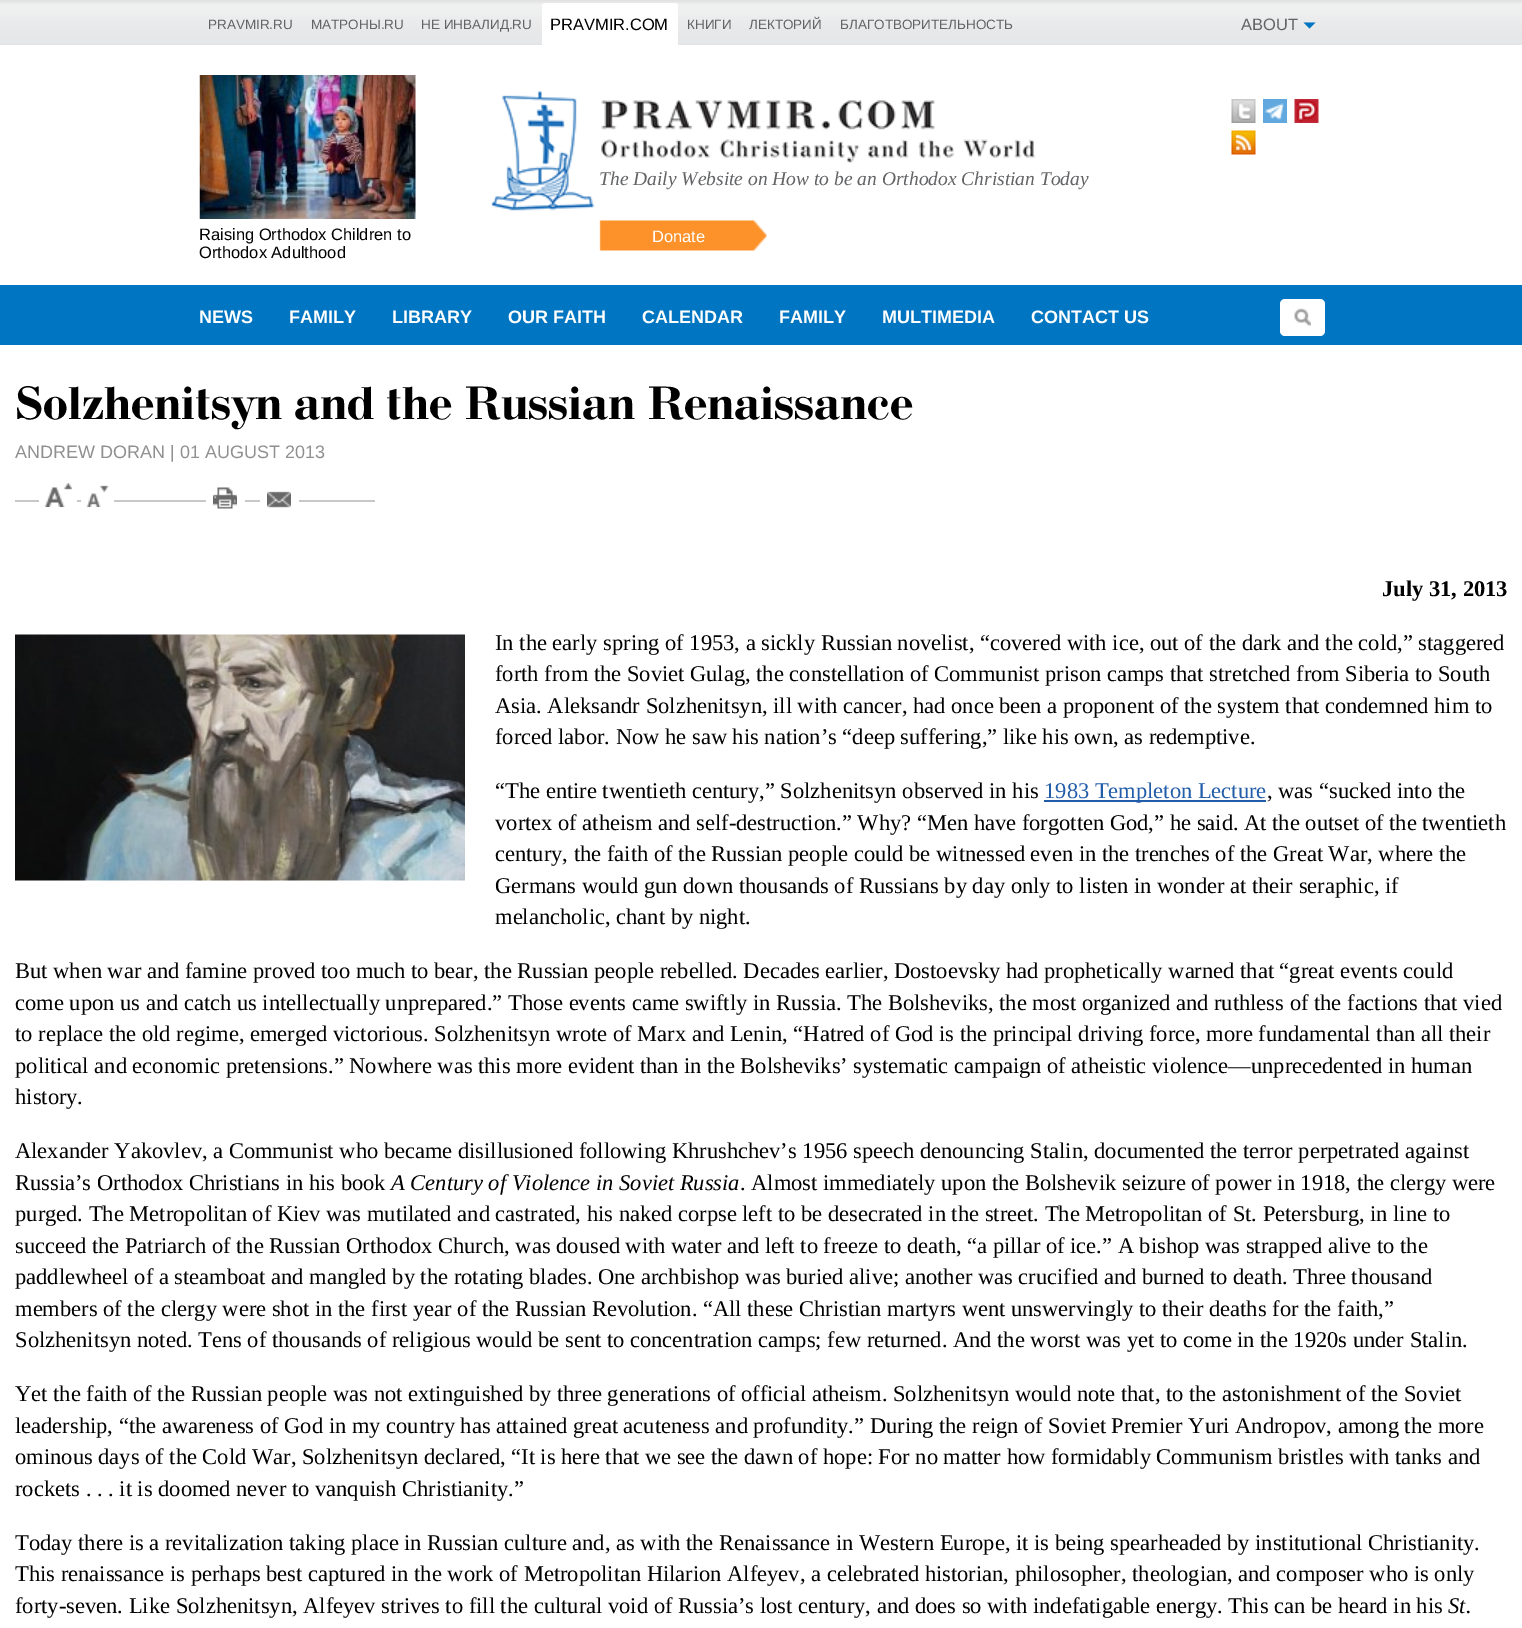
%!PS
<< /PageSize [1522 1628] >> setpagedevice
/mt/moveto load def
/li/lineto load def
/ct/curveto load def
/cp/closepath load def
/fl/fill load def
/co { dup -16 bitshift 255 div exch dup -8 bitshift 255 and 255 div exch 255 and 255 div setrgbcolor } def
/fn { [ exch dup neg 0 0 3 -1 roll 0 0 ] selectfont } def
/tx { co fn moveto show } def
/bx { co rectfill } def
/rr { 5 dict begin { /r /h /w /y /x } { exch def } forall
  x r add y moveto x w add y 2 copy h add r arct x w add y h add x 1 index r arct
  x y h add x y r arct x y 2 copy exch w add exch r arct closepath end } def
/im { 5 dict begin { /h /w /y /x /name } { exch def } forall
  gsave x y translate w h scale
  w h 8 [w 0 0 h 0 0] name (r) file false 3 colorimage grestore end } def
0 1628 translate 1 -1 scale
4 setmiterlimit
0 0 1522 1628 16#FFFFFF bx
(media/1.raw) 0 0 1522 45 im
545 3 mt 675 3 li 676.5 3 678 4.5 678 6 ct 678 45 li 542 45 li 542 6 li 542 4.5 543.5 3 545 3 ct cp fl
16#0074C1 co
1303.5 22.5 mt 1315.5 22.5 li 1309.5 28.5 li cp fl
(media/2.raw) 199 75 217 144 im
(media/3.raw) 491 91 545 120 im
(media/4.raw) 1231 99 25 24 im
(media/5.raw) 1263 99 24 24 im
(media/6.raw) 1294 99 25 24 im
(media/7.raw) 1231 130 25 25 im
(media/8.raw) 599 220 168 31 im
0 285 1522 60 16#0075C1 bx
16#FFFFFF co
1280 299 45 37 5 rr fl
(media/9.raw) 1294 308 17 18 im
15 500 360 2 16#C7C8CA bx
39 500 38 2 16#FFFFFF bx
(media/10.raw) 45 483 27 24 im
81 500 33 2 16#FFFFFF bx
(media/11.raw) 86 485 23 22 im
206 500 39 2 16#FFFFFF bx
(media/12.raw) 213 487 24 22 im
260 500 39 2 16#FFFFFF bx
(media/13.raw) 267 491 24 17 im
(media/14.raw) 15 634 450 247 im
1044 800 222 2 16#225DA9 bx
(PRAVMIR.RU) 208 29 /LiberationSans-Regular 13.5 16#636466 tx
(МАТРОНЫ.RU) 311 29 /LiberationSans-Regular 13.5 16#636466 tx
(НЕ ИНВАЛИД.RU) 421 29 /LiberationSans-Regular 13.5 16#636466 tx
(PRAVMIR.COM) 550 30 /LiberationSans-Regular 16.5 16#000000 tx
(КНИГИ) 687 29 /LiberationSans-Regular 13.5 16#636466 tx
(ЛЕКТОРИЙ) 749 29 /LiberationSans-Regular 13.5 16#636466 tx
(БЛАГОТВОРИТЕЛЬНОСТЬ) 840 29 /LiberationSans-Regular 13.5 16#636466 tx
(ABOUT) 1241 30 /LiberationSans-Regular 16.5 16#636466 tx
(Raising Orthodox Children to) 199 240 /LiberationSans-Regular 16.5 16#000000 tx
(Orthodox Adulthood) 199 258 /LiberationSans-Regular 16.5 16#000000 tx
(The Daily Website on How to be an Orthodox Christian Today) 599 185 /LiberationSerif-Italic 19.5 16#636466 tx
(Donate) 652 242 /LiberationSans-Regular 16.5 16#FFFFFF tx
(NEWS) 199 323 /LiberationSans-Bold 18 16#FFFFFF tx
(FAMILY) 289 323 /LiberationSans-Bold 18 16#FFFFFF tx
(LIBRARY) 392 323 /LiberationSans-Bold 18 16#FFFFFF tx
(OUR FAITH) 508 323 /LiberationSans-Bold 18 16#FFFFFF tx
(CALENDAR) 642 323 /LiberationSans-Bold 18 16#FFFFFF tx
(FAMILY) 779 323 /LiberationSans-Bold 18 16#FFFFFF tx
(MULTIMEDIA) 882 323 /LiberationSans-Bold 18 16#FFFFFF tx
(CONTACT US) 1031 323 /LiberationSans-Bold 18 16#FFFFFF tx
(Solzhenitsyn and the Russian Renaissance) 15 419 /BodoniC-Bold 49.5 16#000000 tx
(ANDREW DORAN | 01 AUGUST 2013) 15 458 /LiberationSans-Regular 18 16#909090 tx
(July 31, 2013) 1382 596 /LiberationSerif-Bold 22.5 16#000000 tx
(In the early spring of 1953, a sickly Russian novelist, “covered with ice, out of the dark and the cold,” staggered) 495 650 /LiberationSerif-Regular 22.5 16#000000 tx
(forth from the Soviet Gulag, the constellation of Communist prison camps that stretched from Siberia to South) 495 681 /LiberationSerif-Regular 22.5 16#000000 tx
(Asia. Aleksandr Solzhenitsyn, ill with cancer, had once been a proponent of the system that condemned him to) 495 713 /LiberationSerif-Regular 22.5 16#000000 tx
(forced labor. Now he saw his nation’s “deep suffering,” like his own, as redemptive.) 495 744 /LiberationSerif-Regular 22.5 16#000000 tx
(“The entire twentieth century,” Solzhenitsyn observed in his) 495 798 /LiberationSerif-Regular 22.5 16#000000 tx
(1983 Templeton Lecture) 1044 798 /LiberationSerif-Regular 22.5 16#225DA9 tx
(, was “sucked into the) 1267 798 /LiberationSerif-Regular 22.5 16#000000 tx
(vortex of atheism and self-destruction.” Why? “Men have forgotten God,” he said. At the outset of the twentieth) 495 830 /LiberationSerif-Regular 22.5 16#000000 tx
(century, the faith of the Russian people could be witnessed even in the trenches of the Great War, where the) 495 861 /LiberationSerif-Regular 22.5 16#000000 tx
(Germans would gun down thousands of Russians by day only to listen in wonder at their seraphic, if) 495 893 /LiberationSerif-Regular 22.5 16#000000 tx
(melancholic, chant by night.) 495 924 /LiberationSerif-Regular 22.5 16#000000 tx
(But when war and famine proved too much to bear, the Russian people rebelled. Decades earlier, Dostoevsky had prophetically warned that “great events could) 15 978 /LiberationSerif-Regular 22.5 16#000000 tx
(come upon us and catch us intellectually unprepared.” Those events came swiftly in Russia. The Bolsheviks, the most organized and ruthless of the factions that vied) 15 1010 /LiberationSerif-Regular 22.5 16#000000 tx
(to replace the old regime, emerged victorious. Solzhenitsyn wrote of Marx and Lenin, “Hatred of God is the principal driving force, more fundamental than all their) 15 1041 /LiberationSerif-Regular 22.5 16#000000 tx
(political and economic pretensions.” Nowhere was this more evident than in the Bolsheviks’ systematic campaign of atheistic violence—unprecedented in human) 15 1073 /LiberationSerif-Regular 22.5 16#000000 tx
(history.) 15 1104 /LiberationSerif-Regular 22.5 16#000000 tx
(Alexander Yakovlev, a Communist who became disillusioned following Khrushchev’s 1956 speech denouncing Stalin, documented the terror perpetrated against) 15 1158 /LiberationSerif-Regular 22.5 16#000000 tx
(Russia’s Orthodox Christians in his book) 15 1190 /LiberationSerif-Regular 22.5 16#000000 tx
(A Century of Violence in Soviet Russia) 391 1190 /LiberationSerif-Italic 22.5 16#000000 tx
(. Almost immediately upon the Bolshevik seizure of power in 1918, the clergy were) 740 1190 /LiberationSerif-Regular 22.5 16#000000 tx
(purged. The Metropolitan of Kiev was mutilated and castrated, his naked corpse left to be desecrated in the street. The Metropolitan of St. Petersburg, in line to) 15 1221 /LiberationSerif-Regular 22.5 16#000000 tx
(succeed the Patriarch of the Russian Orthodox Church, was doused with water and left to freeze to death, “a pillar of ice.” A bishop was strapped alive to the) 15 1253 /LiberationSerif-Regular 22.5 16#000000 tx
(paddlewheel of a steamboat and mangled by the rotating blades. One archbishop was buried alive; another was crucified and burned to death. Three thousand) 15 1284 /LiberationSerif-Regular 22.5 16#000000 tx
(members of the clergy were shot in the first year of the Russian Revolution. “All these Christian martyrs went unswervingly to their deaths for the faith,”) 15 1316 /LiberationSerif-Regular 22.5 16#000000 tx
(Solzhenitsyn noted. Tens of thousands of religious would be sent to concentration camps; few returned. And the worst was yet to come in the 1920s under Stalin.) 15 1347 /LiberationSerif-Regular 22.5 16#000000 tx
(Yet the faith of the Russian people was not extinguished by three generations of official atheism. Solzhenitsyn would note that, to the astonishment of the Soviet) 15 1401 /LiberationSerif-Regular 22.5 16#000000 tx
(leadership, “the awareness of God in my country has attained great acuteness and profundity.” During the reign of Soviet Premier Yuri Andropov, among the more) 15 1433 /LiberationSerif-Regular 22.5 16#000000 tx
(ominous days of the Cold War, Solzhenitsyn declared, “It is here that we see the dawn of hope: For no matter how formidably Communism bristles with tanks and) 15 1464 /LiberationSerif-Regular 22.5 16#000000 tx
(rockets . . . it is doomed never to vanquish Christianity.”) 15 1496 /LiberationSerif-Regular 22.5 16#000000 tx
(Today there is a revitalization taking place in Russian culture and, as with the Renaissance in Western Europe, it is being spearheaded by institutional Christianity.) 15 1550 /LiberationSerif-Regular 22.5 16#000000 tx
(This renaissance is perhaps best captured in the work of Metropolitan Hilarion Alfeyev, a celebrated historian, philosopher, theologian, and composer who is only) 15 1581 /LiberationSerif-Regular 22.5 16#000000 tx
(forty-seven. Like Solzhenitsyn, Alfeyev strives to fill the cultural void of Russia’s lost century, and does so with indefatigable energy. This can be heard in his) 15 1613 /LiberationSerif-Regular 22.5 16#000000 tx
(St.) 1448 1613 /LiberationSerif-Italic 22.5 16#000000 tx
showpage
